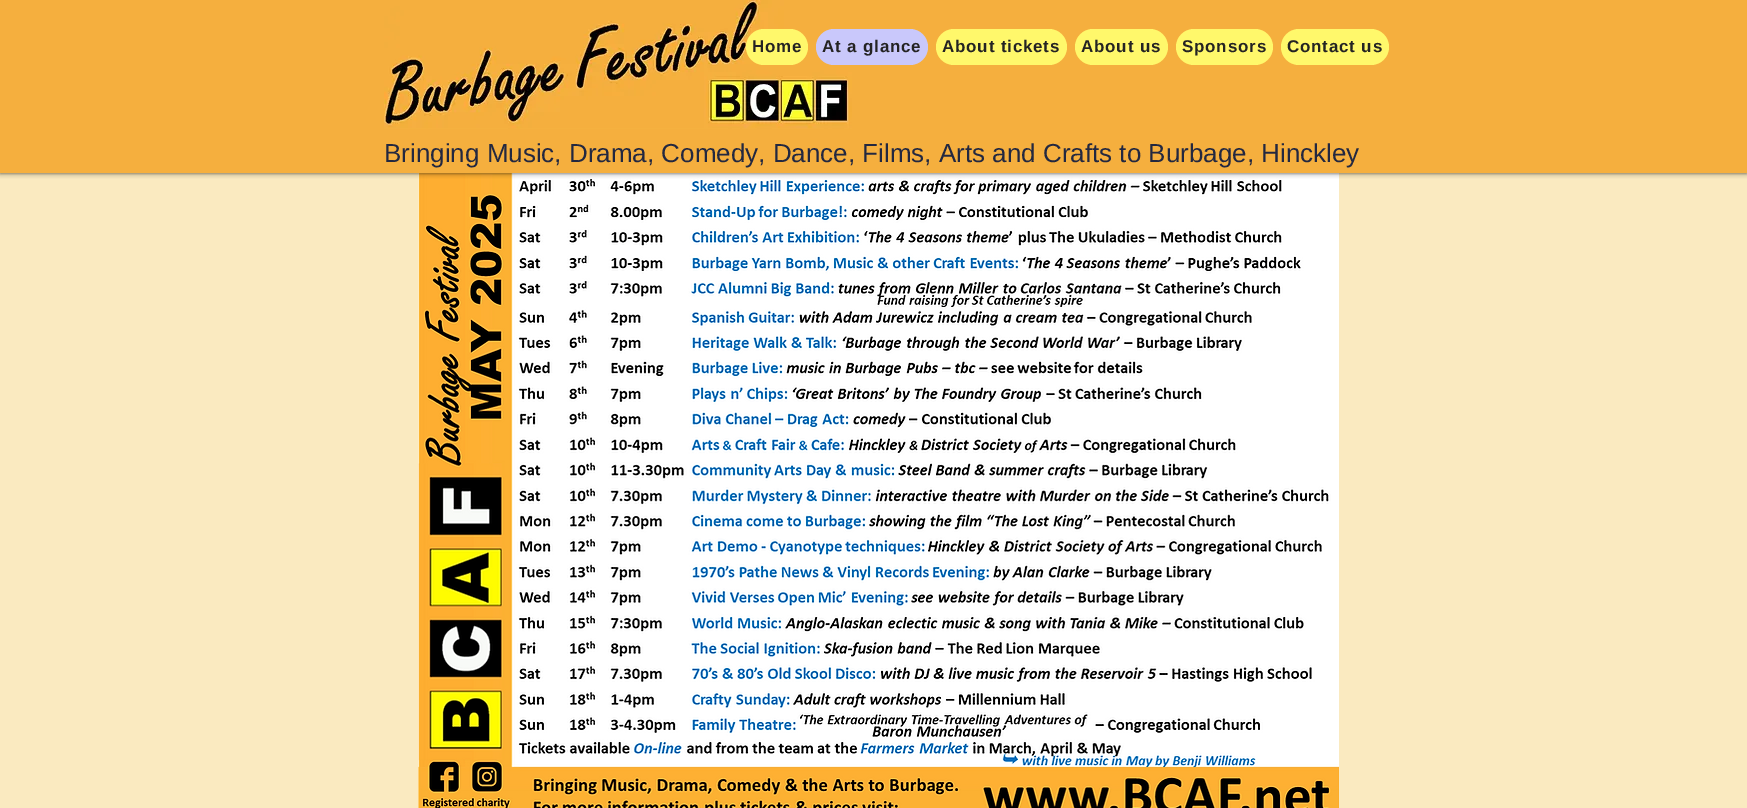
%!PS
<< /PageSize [1747 808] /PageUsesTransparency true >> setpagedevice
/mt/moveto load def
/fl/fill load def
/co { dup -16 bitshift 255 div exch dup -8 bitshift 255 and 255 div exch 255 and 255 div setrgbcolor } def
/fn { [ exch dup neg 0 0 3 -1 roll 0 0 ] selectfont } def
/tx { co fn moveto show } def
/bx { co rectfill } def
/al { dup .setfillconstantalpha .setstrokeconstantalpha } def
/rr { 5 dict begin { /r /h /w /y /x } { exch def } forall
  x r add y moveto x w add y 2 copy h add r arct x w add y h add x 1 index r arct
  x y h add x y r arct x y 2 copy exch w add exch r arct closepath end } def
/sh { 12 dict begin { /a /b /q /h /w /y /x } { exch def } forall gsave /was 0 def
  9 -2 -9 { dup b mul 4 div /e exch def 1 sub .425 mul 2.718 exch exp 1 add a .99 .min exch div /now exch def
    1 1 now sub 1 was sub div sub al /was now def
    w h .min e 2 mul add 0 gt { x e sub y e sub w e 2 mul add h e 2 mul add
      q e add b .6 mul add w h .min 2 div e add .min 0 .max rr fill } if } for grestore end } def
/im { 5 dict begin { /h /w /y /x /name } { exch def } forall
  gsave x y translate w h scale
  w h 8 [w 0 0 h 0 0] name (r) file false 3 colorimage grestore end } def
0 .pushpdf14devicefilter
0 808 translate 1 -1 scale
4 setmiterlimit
0 0 1747 808 16#FAEAC0 bx
(media/2.raw) 418 173 921 635 im
16#000000 co
0 0 1747 173 0 2.5 .7 sh
0 0 1747 173 16#F5AF3E bx
(media/1.raw) 384 0 468 129 im
16#FFF86B co
746 29 62 36 18 rr fl
16#C9C8FB co
816 29 112 36 18 rr fl
16#FFF86B co
936 29 131 36 18 rr fl
1075 29 93 36 18 rr fl
1176 29 97 36 18 rr fl
1281 29 108 36 18 rr fl
/LiberationSans-Bold 17 fn
16#242323 co
752 52 mt .8 0 (Home) ashow
822 52 mt .8 0 (At a glance) ashow
942 52 mt .8 0 (About tickets) ashow
1081 52 mt .8 0 (About us) ashow
1182 52 mt .8 0 (Sponsors) ashow
1287 52 mt .8 0 (Contact us) ashow
(Bringing Music, Drama, Comedy, Dance, Films, Arts and Crafts to Burbage, Hinckley) 384 162 /LiberationSans-Regular 26 16#232840 tx
.poppdf14devicefilter showpage
